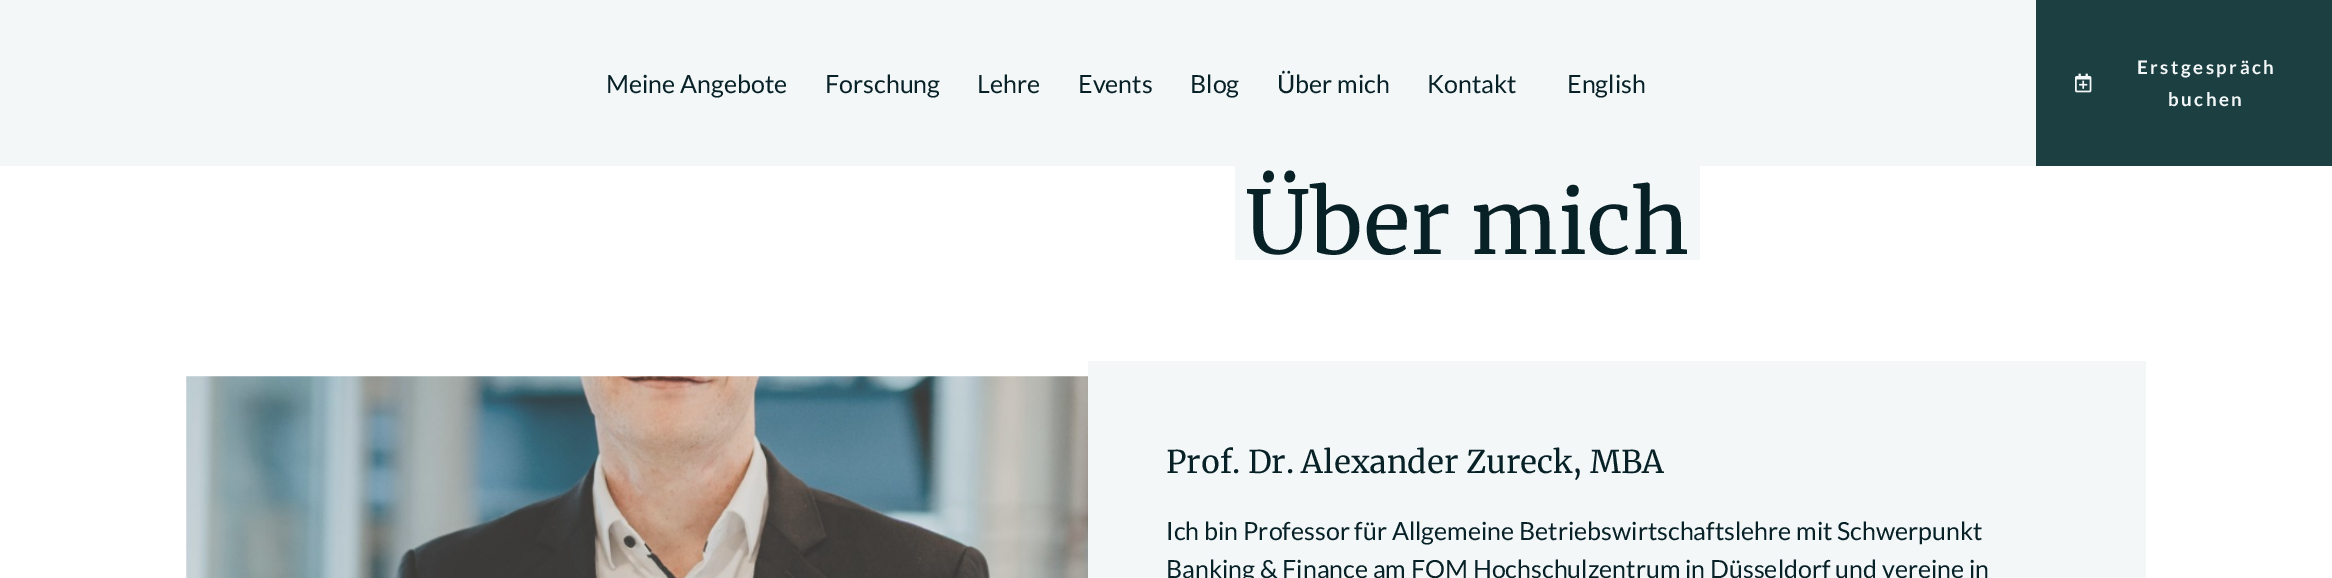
%!PS
<< /PageSize [2332 578] >> setpagedevice
/mt/moveto load def
/co { dup -16 bitshift 255 div exch dup -8 bitshift 255 and 255 div exch 255 and 255 div setrgbcolor } def
/fn { [ exch dup neg 0 0 3 -1 roll 0 0 ] selectfont } def
/tx { co fn moveto show } def
/bx { co rectfill } def
/im { 5 dict begin { /h /w /y /x /name } { exch def } forall
  gsave x y translate w h scale
  w h 8 [w 0 0 h 0 0] name (r) file false 3 colorimage grestore end } def
0 578 translate 1 -1 scale
4 setmiterlimit
0 0 2332 578 16#FFFFFF bx
0 0 2036 166 16#F3F7F8 bx
2036 0 296 166 16#1C3F41 bx
(media/1.raw) 2075 73 17 20 im
(media/2.raw) 186 376 902 202 im
1235 166 465 94 16#F3F7F8 bx
1088 361 1058 217 16#F3F7F8 bx
(Meine Angebote) 606 93 /Lato-Regular 25 16#072127 tx
(Forschung) 825 93 /Lato-Regular 25 16#072127 tx
(Lehre) 977 93 /Lato-Regular 25 16#072127 tx
(Events) 1078 93 /Lato-Regular 25 16#072127 tx
(Blog) 1190 93 /Lato-Regular 25 16#072127 tx
(Über mich) 1277 93 /Lato-Regular 25 16#072127 tx
(Kontakt) 1427 93 /Lato-Regular 25 16#072127 tx
(English) 1567 93 /Lato-Regular 25 16#072127 tx
/Lato-Bold 18.75 fn
16#F3F7F8 co
2137 74 mt 2.5 0 (Erstgespräch) ashow
2168 106 mt 2.5 0 (buchen) ashow
(Über mich) 1245 254 /Merriweather-Regular 87.5 16#072127 tx
(Prof. Dr. Alexander Zureck, MBA) 1166 473 /Merriweather-Regular 31.25 16#072127 tx
(Ich bin Professor für Allgemeine Betriebswirtschaftslehre mit Schwerpunkt) 1166 540 /Lato-Regular 25 16#072127 tx
(Banking & Finance am FOM Hochschulzentrum in Düsseldorf und vereine in) 1166 578 /Lato-Regular 25 16#072127 tx
showpage
